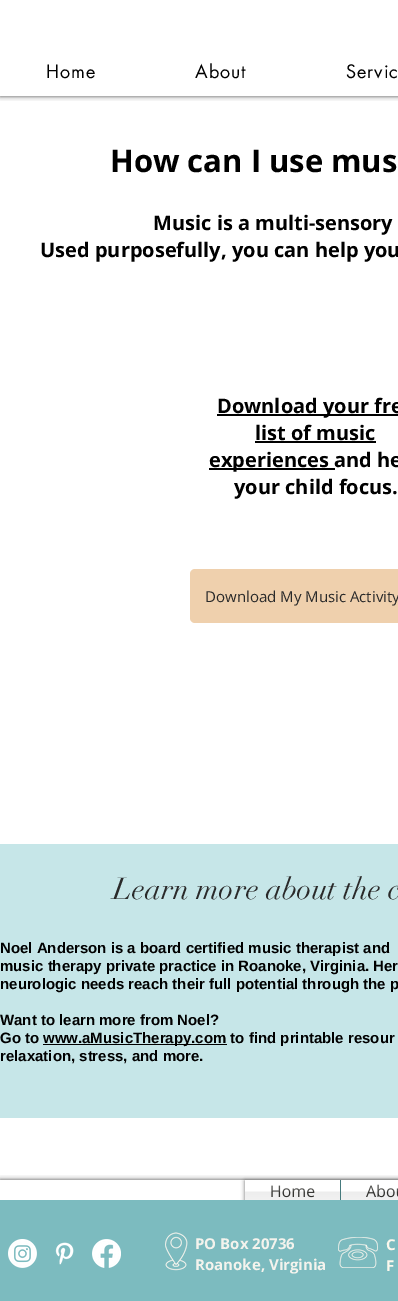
%!PS
<< /PageSize [398 1301] /PageUsesTransparency true >> setpagedevice
/mt/moveto load def
/fl/fill load def
/gs/gsave load def
/gr/grestore load def
/co { dup -16 bitshift 255 div exch dup -8 bitshift 255 and 255 div exch 255 and 255 div setrgbcolor } def
/fn { [ exch dup neg 0 0 3 -1 roll 0 0 ] selectfont } def
/tx { co fn moveto show } def
/bx { co rectfill } def
/al { dup .setfillconstantalpha .setstrokeconstantalpha } def
/rr { 5 dict begin { /r /h /w /y /x } { exch def } forall
  x r add y moveto x w add y 2 copy h add r arct x w add y h add x 1 index r arct
  x y h add x y r arct x y 2 copy exch w add exch r arct closepath end } def
/sh { 12 dict begin { /a /b /q /h /w /y /x } { exch def } forall gsave /was 0 def
  9 -2 -9 { dup b mul 4 div /e exch def 1 sub .425 mul 2.718 exch exp 1 add a .99 .min exch div /now exch def
    1 1 now sub 1 was sub div sub al /was now def
    w h .min e 2 mul add 0 gt { x e sub y e sub w e 2 mul add h e 2 mul add
      q e add b .6 mul add w h .min 2 div e add .min 0 .max rr fill } if } for grestore end } def
/im { 5 dict begin { /h /w /y /x /name } { exch def } forall
  gsave x y translate w h scale
  w h 8 [w 0 0 h 0 0] name (r) file false 3 colorimage grestore end } def
0 .pushpdf14devicefilter
0 1301 translate 1 -1 scale
4 setmiterlimit
0 0 398 1301 16#FFFFFF bx
gs
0 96 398 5 rectclip
16#000000 co
0 -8 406 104 0 2.5 .7 sh
gr
217 414 181 2 16#000000 bx
255 441 121 2 16#000000 bx
209 468 126 2 16#000000 bx
16#EFD0AD co
190 569 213 54 5 rr fl
0 844 398 274 16#C6E6E8 bx
43 1044 184 1 16#000000 bx
gs
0 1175 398 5 rectclip
0 1180 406 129 0 2.5 .7 sh
gr
245 1181 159 23 0 2 .6 sh
245 1180 95 20 16#FFFFFF bx
341 1180 57 20 16#FFFFFF bx
340 1180 1 23 16#467A7D bx
0 1200 398 101 16#7CBBBF bx
(media/3.raw) 8 1239 29 29 im
(media/4.raw) 55 1242 19 23 im
(media/5.raw) 92 1239 29 29 im
(media/6.raw) 165 1232 23 39 im
(media/7.raw) 338 1237 40 31 im
/futura-Regular 18 fn
16#000000 co
46 78 mt 1 0 (Home) ashow
195 78 mt 1 0 (About) ashow
346 78 mt 1 0 (Servic) ashow
(How can I use mus) 110 172 /OpenSans-Bold 31 16#000000 tx
(Music is a multi-sensory) 153 230 /OpenSans-Bold 20 16#000000 tx
(Used purposefully, you can help you) 40 257 /OpenSans-Bold 20 16#000000 tx
(Download your fre) 217 413 /OpenSans-Bold 20 16#000000 tx
(list of music) 255 440 /OpenSans-Bold 20 16#000000 tx
(experiences and he) 209 467 /OpenSans-Bold 20 16#000000 tx
(your child focus.) 234 494 /OpenSans-Bold 20 16#000000 tx
(Download My Music Activity) 205 602 /OpenSans-Regular 15 16#2A2A2A tx
(Learn more about the c) 113 899 /didot-Regular 30 16#2A2A2A tx
(Noel Anderson is a board certified music therapist and) 0 953 /LiberationSans-Bold 15 16#000000 tx
(music therapy private practice in Roanoke, Virginia. Her) 0 971 /LiberationSans-Bold 15 16#000000 tx
(neurologic needs reach their full potential through the p) 0 989 /LiberationSans-Bold 15 16#000000 tx
(Want to learn more from Noel?) 0 1025 /LiberationSans-Bold 15 16#000000 tx
(Go to) 0 1043 /LiberationSans-Bold 15 16#000000 tx
(www.aMusicTherapy.com to find printable resour) 43 1043 /LiberationSans-Bold 15 16#000000 tx
(relaxation, stress, and more.) 0 1061 /LiberationSans-Bold 15 16#000000 tx
(Home) 270 1197 /OpenSans-Regular 16 16#32322F tx
(media/1.raw) 245 1185 95 15 im
(Abo) 366 1197 /OpenSans-Regular 16 16#32322F tx
(media/2.raw) 341 1185 57 15 im
(PO Box 20736) 195 1249 /OpenSans-Bold 15 16#F4F3ED tx
(Roanoke, Virginia) 195 1270 /OpenSans-Bold 15 16#F4F3ED tx
(C) 386 1250 /OpenSans-Bold 15 16#FCF8ED tx
(F) 386 1271 /OpenSans-Bold 15 16#FCF8ED tx
.poppdf14devicefilter showpage
